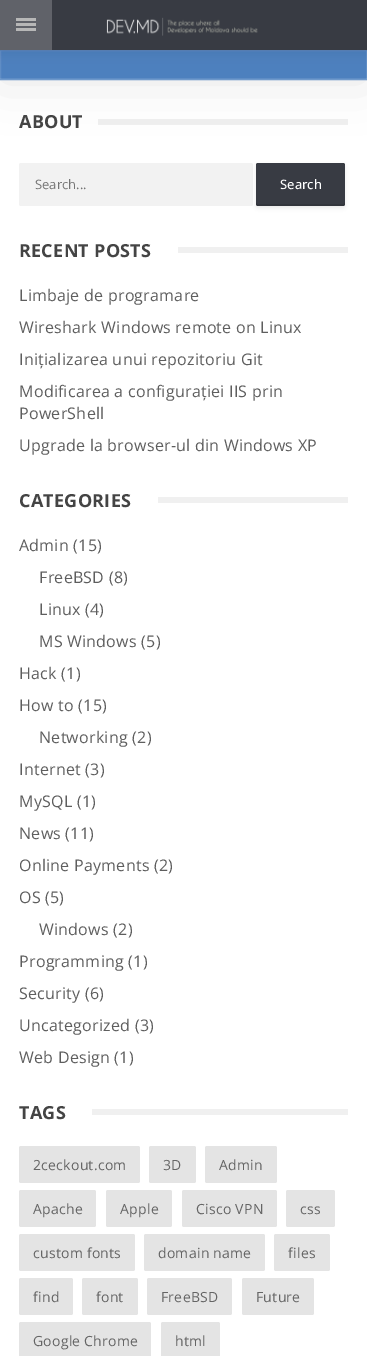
%!PS
<< /PageSize [367 1356] /PageUsesTransparency true >> setpagedevice
/mt/moveto load def
/li/lineto load def
/ct/curveto load def
/cp/closepath load def
/fl/fill load def
/st/stroke load def
/gs/gsave load def
/gr/grestore load def
/co { dup -16 bitshift 255 div exch dup -8 bitshift 255 and 255 div exch 255 and 255 div setrgbcolor } def
/fn { [ exch dup neg 0 0 3 -1 roll 0 0 ] selectfont } def
/tx { co fn moveto show } def
/bx { co rectfill } def
/al { dup .setfillconstantalpha .setstrokeconstantalpha } def
/rr { 5 dict begin { /r /h /w /y /x } { exch def } forall
  x r add y moveto x w add y 2 copy h add r arct x w add y h add x 1 index r arct
  x y h add x y r arct x y 2 copy exch w add exch r arct closepath end } def
/sh { 12 dict begin { /a /b /q /h /w /y /x } { exch def } forall gsave /was 0 def
  9 -2 -9 { dup b mul 4 div /e exch def 1 sub .425 mul 2.718 exch exp 1 add a .99 .min exch div /now exch def
    1 1 now sub 1 was sub div sub al /was now def
    w h .min e 2 mul add 0 gt { x e sub y e sub w e 2 mul add h e 2 mul add
      q e add b .6 mul add w h .min 2 div e add .min 0 .max rr fill } if } for grestore end } def
/im { 5 dict begin { /h /w /y /x /name } { exch def } forall
  gsave x y translate w h scale
  w h 8 [w 0 0 h 0 0] name (r) file false 3 colorimage grestore end } def
0 .pushpdf14devicefilter
0 1356 translate 1 -1 scale
4 setmiterlimit
0 0 367 1356 16#FFFFFF bx
98 119 250 6 16#F0F0F0 bx
16#000000 co
0 50 367 30 0 25 .1 sh
16#4D80BE co
.5 50.5 mt 366.5 50.5 li 366.5 79.5 li .5 79.5 li cp gs fl gr
16#5F8DC5 co
st
0.1 al
0 78 367 2 16#FFFFFF bx
1 al
16#000000 co
0 5 367 50 0 5 .05 sh
0.06 al
0 50 367 1 16#000000 bx
1 al
52 0 315 50 16#383B43 bx
0 0 52 50 16#606269 bx
16 28 20 3 16#B7B7B7 bx
16 23 20 3 16#B7B7B7 bx
16 18 20 3 16#B7B7B7 bx
(media/1.raw) 106 17 152 19 im
16#F2F2F2 co
19 163 234 43 2 rr fl
16#000000 co
256 165 89 43 2 2 .08 sh
16#383B43 co
256 163 89 43 2 rr fl
0.1 al
16#000000 co
256 202 mt 256 204 li 256 205 257 206 258 206 ct 343 206 li 344 206 345 205 345 204 ct 345 202 li 345 203 344 204 343 204 ct 258 204 li 257 204 256 203 256 202 ct cp fl
1 al
178 247 170 6 16#F0F0F0 bx
158 497 190 6 16#F0F0F0 bx
92 1109 256 6 16#F0F0F0 bx
16#E4E4E4 co
19 1146 121 37 2 rr fl
149 1146 47 37 2 rr fl
205 1146 72 37 2 rr fl
19 1190 77 37 2 rr fl
106 1190 66 37 2 rr fl
182 1190 95 37 2 rr fl
286 1190 49 37 2 rr fl
19 1234 116 37 2 rr fl
144 1234 121 37 2 rr fl
274 1234 56 37 2 rr fl
19 1278 54 37 2 rr fl
82 1278 56 37 2 rr fl
147 1278 85 37 2 rr fl
242 1278 72 37 2 rr fl
19 1322 132 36 2 rr fl
161 1322 59 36 2 rr fl
/OpenSans-Bold 18 fn
16#444444 co
19 128 mt .25 0 (ABOUT) ashow
(Search...) 35 189 /OpenSans-Regular 13 16#757575 tx
(Search) 280 189 /OpenSans-Medium 13 16#FFFFFF tx
/OpenSans-Bold 18 fn
16#444444 co
19 257 mt .25 0 (RECENT POSTS) ashow
/OpenSans-Regular 16 fn
16#5E5E5E co
19 301 mt .25 0 (Limbaje de programare) ashow
19 333 mt .25 0 (Wireshark Windows remote on Linux) ashow
19 365 mt .25 0 (Inițializarea unui repozitoriu Git) ashow
19 397 mt .25 0 (Modificarea a configurației IIS prin) ashow
19 419 mt .25 0 (PowerShell) ashow
19 451 mt .25 0 (Upgrade la browser-ul din Windows XP) ashow
/OpenSans-Bold 18 fn
16#444444 co
19 507 mt .25 0 (CATEGORIES) ashow
/OpenSans-Regular 16 fn
16#5E5E5E co
19 551 mt .25 0 (Admin \(15\)) ashow
39 583 mt .25 0 (FreeBSD \(8\)) ashow
39 615 mt .25 0 (Linux \(4\)) ashow
39 647 mt .25 0 (MS Windows \(5\)) ashow
19 679 mt .25 0 (Hack \(1\)) ashow
19 711 mt .25 0 (How to \(15\)) ashow
39 743 mt .25 0 (Networking \(2\)) ashow
19 775 mt .25 0 (Internet \(3\)) ashow
19 807 mt .25 0 (MySQL \(1\)) ashow
19 839 mt .25 0 (News \(11\)) ashow
19 871 mt .25 0 (Online Payments \(2\)) ashow
19 903 mt .25 0 (OS \(5\)) ashow
39 935 mt .25 0 (Windows \(2\)) ashow
19 967 mt .25 0 (Programming \(1\)) ashow
19 999 mt .25 0 (Security \(6\)) ashow
19 1031 mt .25 0 (Uncategorized \(3\)) ashow
19 1063 mt .25 0 (Web Design \(1\)) ashow
/OpenSans-Bold 18 fn
16#444444 co
19 1119 mt .25 0 (TAGS) ashow
/OpenSans-Regular 14 fn
16#656565 co
33 1170 mt .25 0 (2ceckout.com) ashow
163 1170 mt .25 0 (3D) ashow
219 1170 mt .25 0 (Admin) ashow
33 1214 mt .25 0 (Apache) ashow
120 1214 mt .25 0 (Apple) ashow
196 1214 mt .25 0 (Cisco VPN) ashow
300 1214 mt .25 0 (css) ashow
33 1258 mt .25 0 (custom fonts) ashow
158 1258 mt .25 0 (domain name) ashow
288 1258 mt .25 0 (files) ashow
33 1302 mt .25 0 (find) ashow
96 1302 mt .25 0 (font) ashow
161 1302 mt .25 0 (FreeBSD) ashow
256 1302 mt .25 0 (Future) ashow
33 1346 mt .25 0 (Google Chrome) ashow
175 1346 mt .25 0 (html) ashow
.poppdf14devicefilter showpage
